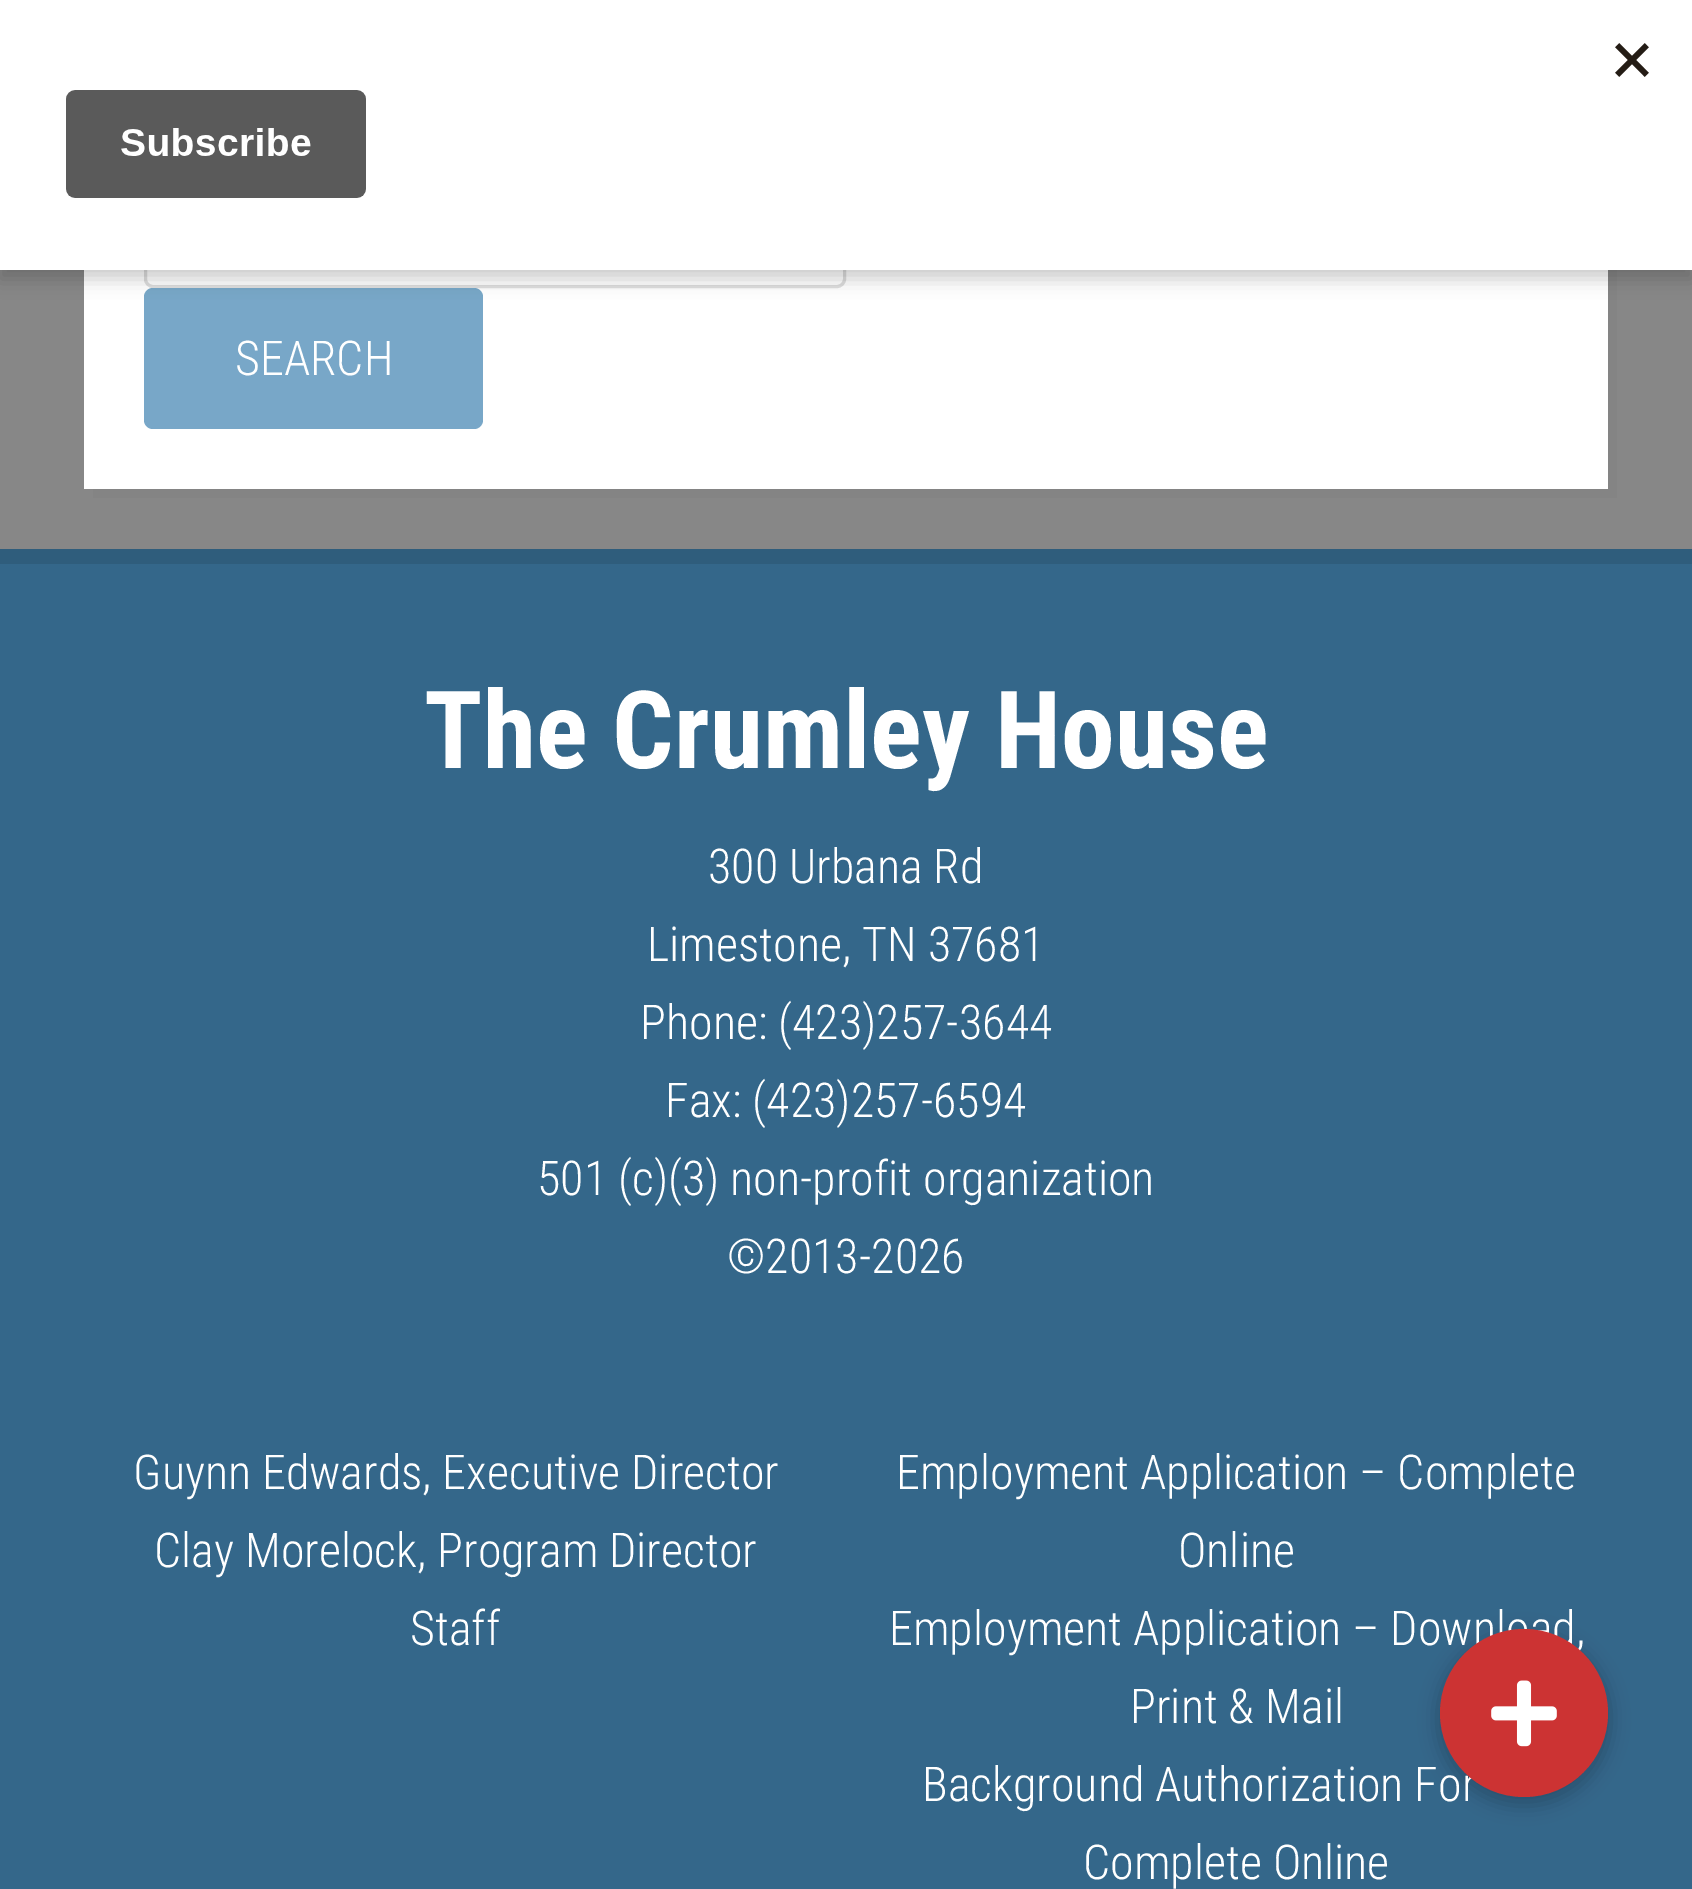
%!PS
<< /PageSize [1692 1889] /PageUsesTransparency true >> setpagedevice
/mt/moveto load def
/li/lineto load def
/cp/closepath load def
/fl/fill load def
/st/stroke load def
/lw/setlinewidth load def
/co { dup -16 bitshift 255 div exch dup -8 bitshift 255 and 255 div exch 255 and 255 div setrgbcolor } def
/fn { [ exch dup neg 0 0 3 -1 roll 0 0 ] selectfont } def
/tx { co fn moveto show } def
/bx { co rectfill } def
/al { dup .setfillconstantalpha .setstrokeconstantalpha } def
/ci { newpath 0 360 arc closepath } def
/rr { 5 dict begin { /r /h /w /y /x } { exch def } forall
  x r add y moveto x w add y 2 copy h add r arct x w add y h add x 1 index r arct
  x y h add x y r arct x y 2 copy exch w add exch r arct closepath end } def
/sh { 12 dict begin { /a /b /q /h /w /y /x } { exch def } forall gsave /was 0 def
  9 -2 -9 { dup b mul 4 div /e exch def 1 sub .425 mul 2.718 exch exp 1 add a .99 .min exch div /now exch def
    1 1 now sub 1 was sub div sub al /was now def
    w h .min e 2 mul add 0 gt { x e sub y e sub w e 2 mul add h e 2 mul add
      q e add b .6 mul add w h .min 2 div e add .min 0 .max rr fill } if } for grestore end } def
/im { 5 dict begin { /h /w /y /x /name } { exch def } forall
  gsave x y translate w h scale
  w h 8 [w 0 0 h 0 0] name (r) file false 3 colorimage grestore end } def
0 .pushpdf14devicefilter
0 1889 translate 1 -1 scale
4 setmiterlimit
0 0 1692 1889 16#878787 bx
16#848484 co
93 489 mt 93 498 li 1617 498 li 1617 -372 li 1608 -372 li 1608 489 li cp fl
84 270 1524 219 16#FFFFFF bx
16#DDDDDD co
3 lw
145.5 136.5 699 150 7.5 rr st
16#78A7C8 co
144 288 339 141 9 rr fl
16#000000 co
0 9 1692 270 0 9 .2 sh
0 0 1692 270 16#FFFFFF bx
(media/1.raw) 66 43 1583 155 im
0 564 1692 1325 16#34678A bx
0 549 1692 15 16#2F5D7C bx
16#000000 co
1437 1632 174 174 87 9 .2 sh
(SEARCH) 235 375 /RobotoCondensed-Light 48 16#FFFFFF tx
(The Crumley House) 424 768 /RobotoCondensed-Bold 108 16#FFFFFF tx
(300 Urbana Rd) 708 883 /RobotoCondensed-Light 48 16#FFFFFF tx
(Limestone, TN 37681) 647 961 /RobotoCondensed-Light 48 16#FFFFFF tx
(Phone: \(423\)257-3644) 640 1039 /RobotoCondensed-Light 48 16#FFFFFF tx
(Fax: \(423\)257-6594) 665 1117 /RobotoCondensed-Light 48 16#FFFFFF tx
(501 \(c\)\(3\) non-profit organization) 537 1195 /RobotoCondensed-Light 48 16#FFFFFF tx
(©2013-2026) 727 1273 /RobotoCondensed-Light 48 16#FFFFFF tx
(Guynn Edwards, Executive Director) 133 1489 /RobotoCondensed-Light 48 16#FFFFFF tx
(Clay Morelock, Program Director) 154 1567 /RobotoCondensed-Light 48 16#FFFFFF tx
(Staff) 410 1645 /RobotoCondensed-Light 48 16#FFFFFF tx
(Employment Application – Complete) 896 1489 /RobotoCondensed-Light 48 16#FFFFFF tx
(Online) 1178 1567 /RobotoCondensed-Light 48 16#FFFFFF tx
(Employment Application – Download,) 889 1645 /RobotoCondensed-Light 48 16#FFFFFF tx
(Print & Mail) 1130 1723 /RobotoCondensed-Light 48 16#FFFFFF tx
(Background Authorization For) 922 1801 /RobotoCondensed-Light 48 16#FFFFFF tx
(Complete Online) 1083 1879 /RobotoCondensed-Light 48 16#FFFFFF tx
16#CC3333 co
1524 1713 84 ci fl
(media/2.raw) 1491 1680 66 67 im
.poppdf14devicefilter showpage
